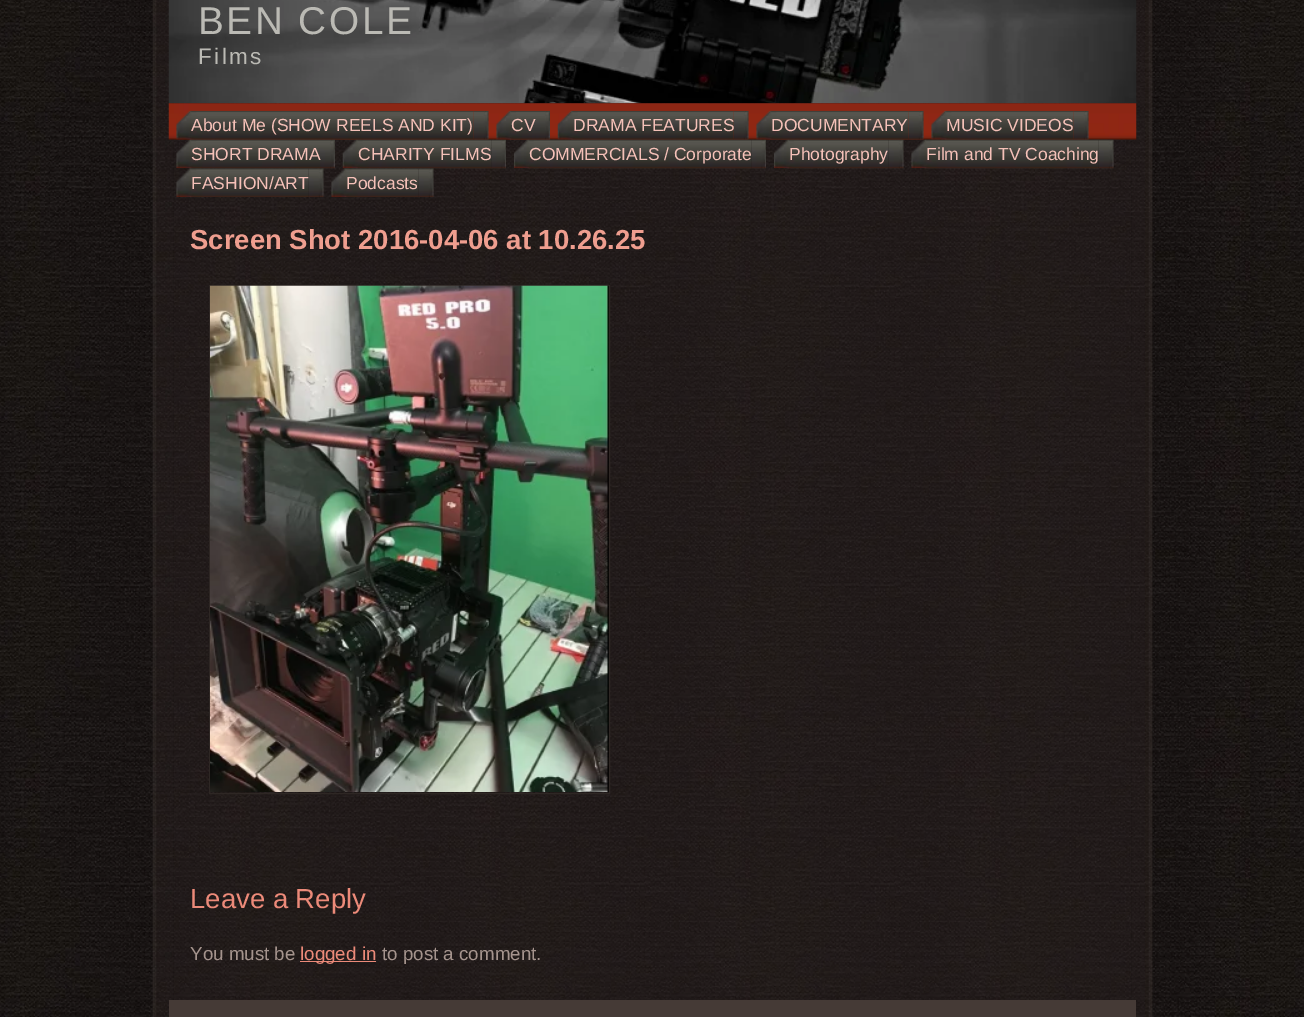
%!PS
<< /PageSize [1304 1017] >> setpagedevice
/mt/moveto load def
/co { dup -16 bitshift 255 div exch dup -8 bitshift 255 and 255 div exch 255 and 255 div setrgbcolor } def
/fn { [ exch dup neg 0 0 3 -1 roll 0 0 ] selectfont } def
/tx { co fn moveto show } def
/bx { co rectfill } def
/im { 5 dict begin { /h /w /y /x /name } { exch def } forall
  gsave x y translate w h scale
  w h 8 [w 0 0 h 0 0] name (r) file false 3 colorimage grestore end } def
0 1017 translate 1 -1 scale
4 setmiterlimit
0 0 1304 1017 16#FFFFFF bx
(media/1.raw) 0 0 1304 1017 im
(media/2.raw) 152 0 22 1017 im
(media/30.raw) 1131 0 22 1017 im
(media/31.raw) 174 103 957 897 im
(media/3.raw) 168 0 969 104 im
(media/4.raw) 168 103 969 37 im
(media/5.raw) 176 110 298 30 im
(media/6.raw) 473 110 16 30 im
(media/7.raw) 496 110 39 30 im
(media/8.raw) 535 110 15 30 im
(media/9.raw) 557 110 177 30 im
(media/10.raw) 733 110 16 30 im
(media/11.raw) 756 110 153 30 im
(media/12.raw) 908 110 16 30 im
(media/13.raw) 931 110 143 30 im
(media/14.raw) 1073 110 16 30 im
(media/15.raw) 176 139 144 30 im
(media/16.raw) 320 139 15 30 im
(media/17.raw) 342 139 150 30 im
(media/18.raw) 491 139 15 30 im
(media/19.raw) 514 139 238 30 im
(media/20.raw) 751 139 15 30 im
(media/21.raw) 774 139 115 30 im
(media/22.raw) 888 139 16 30 im
(media/23.raw) 911 139 188 30 im
(media/24.raw) 1098 139 16 30 im
(media/25.raw) 176 168 133 29 im
(media/26.raw) 308 168 16 29 im
(media/27.raw) 331 168 88 29 im
(media/28.raw) 418 168 16 29 im
16#2E2724 co
209.5 285.5 400 508 rectstroke
(media/29.raw) 210 285 399 507 im
300 961 76 1 16#EC8A79 bx
169 1000 967 17 16#453A36 bx
/LiberationSans-Regular 38.75 fn
16#BBBAB4 co
198 34 mt 2.5 0 (BEN COLE) ashow
/LiberationSans-Regular 22.5 fn
198 64 mt 2.5 0 (Films) ashow
(About Me \(SHOW REELS AND KIT\)) 191 131 /LiberationSans-Regular 17.5 16#F5C1B8 tx
(CV) 511 131 /LiberationSans-Regular 17.5 16#F5C1B8 tx
(DRAMA FEATURES) 573 131 /LiberationSans-Regular 17.5 16#F5C1B8 tx
(DOCUMENTARY) 771 131 /LiberationSans-Regular 17.5 16#F5C1B8 tx
(MUSIC VIDEOS) 946 131 /LiberationSans-Regular 17.5 16#F5C1B8 tx
(SHORT DRAMA) 191 160 /LiberationSans-Regular 17.5 16#F5C1B8 tx
(CHARITY FILMS) 358 160 /LiberationSans-Regular 17.5 16#F5C1B8 tx
(COMMERCIALS / Corporate) 529 160 /LiberationSans-Regular 17.5 16#F5C1B8 tx
(Photography) 789 160 /LiberationSans-Regular 17.5 16#F5C1B8 tx
(Film and TV Coaching) 926 160 /LiberationSans-Regular 17.5 16#F5C1B8 tx
(FASHION/ART) 191 189 /LiberationSans-Regular 17.5 16#F5C1B8 tx
(Podcasts) 346 189 /LiberationSans-Regular 17.5 16#F5C1B8 tx
(Screen Shot 2016-04-06 at 10.26.25) 190 249 /LiberationSans-Bold 27.5 16#EF9E8F tx
(Leave a Reply) 190 908 /LiberationSans-Regular 27.5 16#EC8A79 tx
(You must be) 190 960 /LiberationSans-Regular 18.75 16#A5948D tx
(logged in) 300 960 /LiberationSans-Regular 18.75 16#EC8A79 tx
(to post a comment.) 382 960 /LiberationSans-Regular 18.75 16#A5948D tx
showpage
